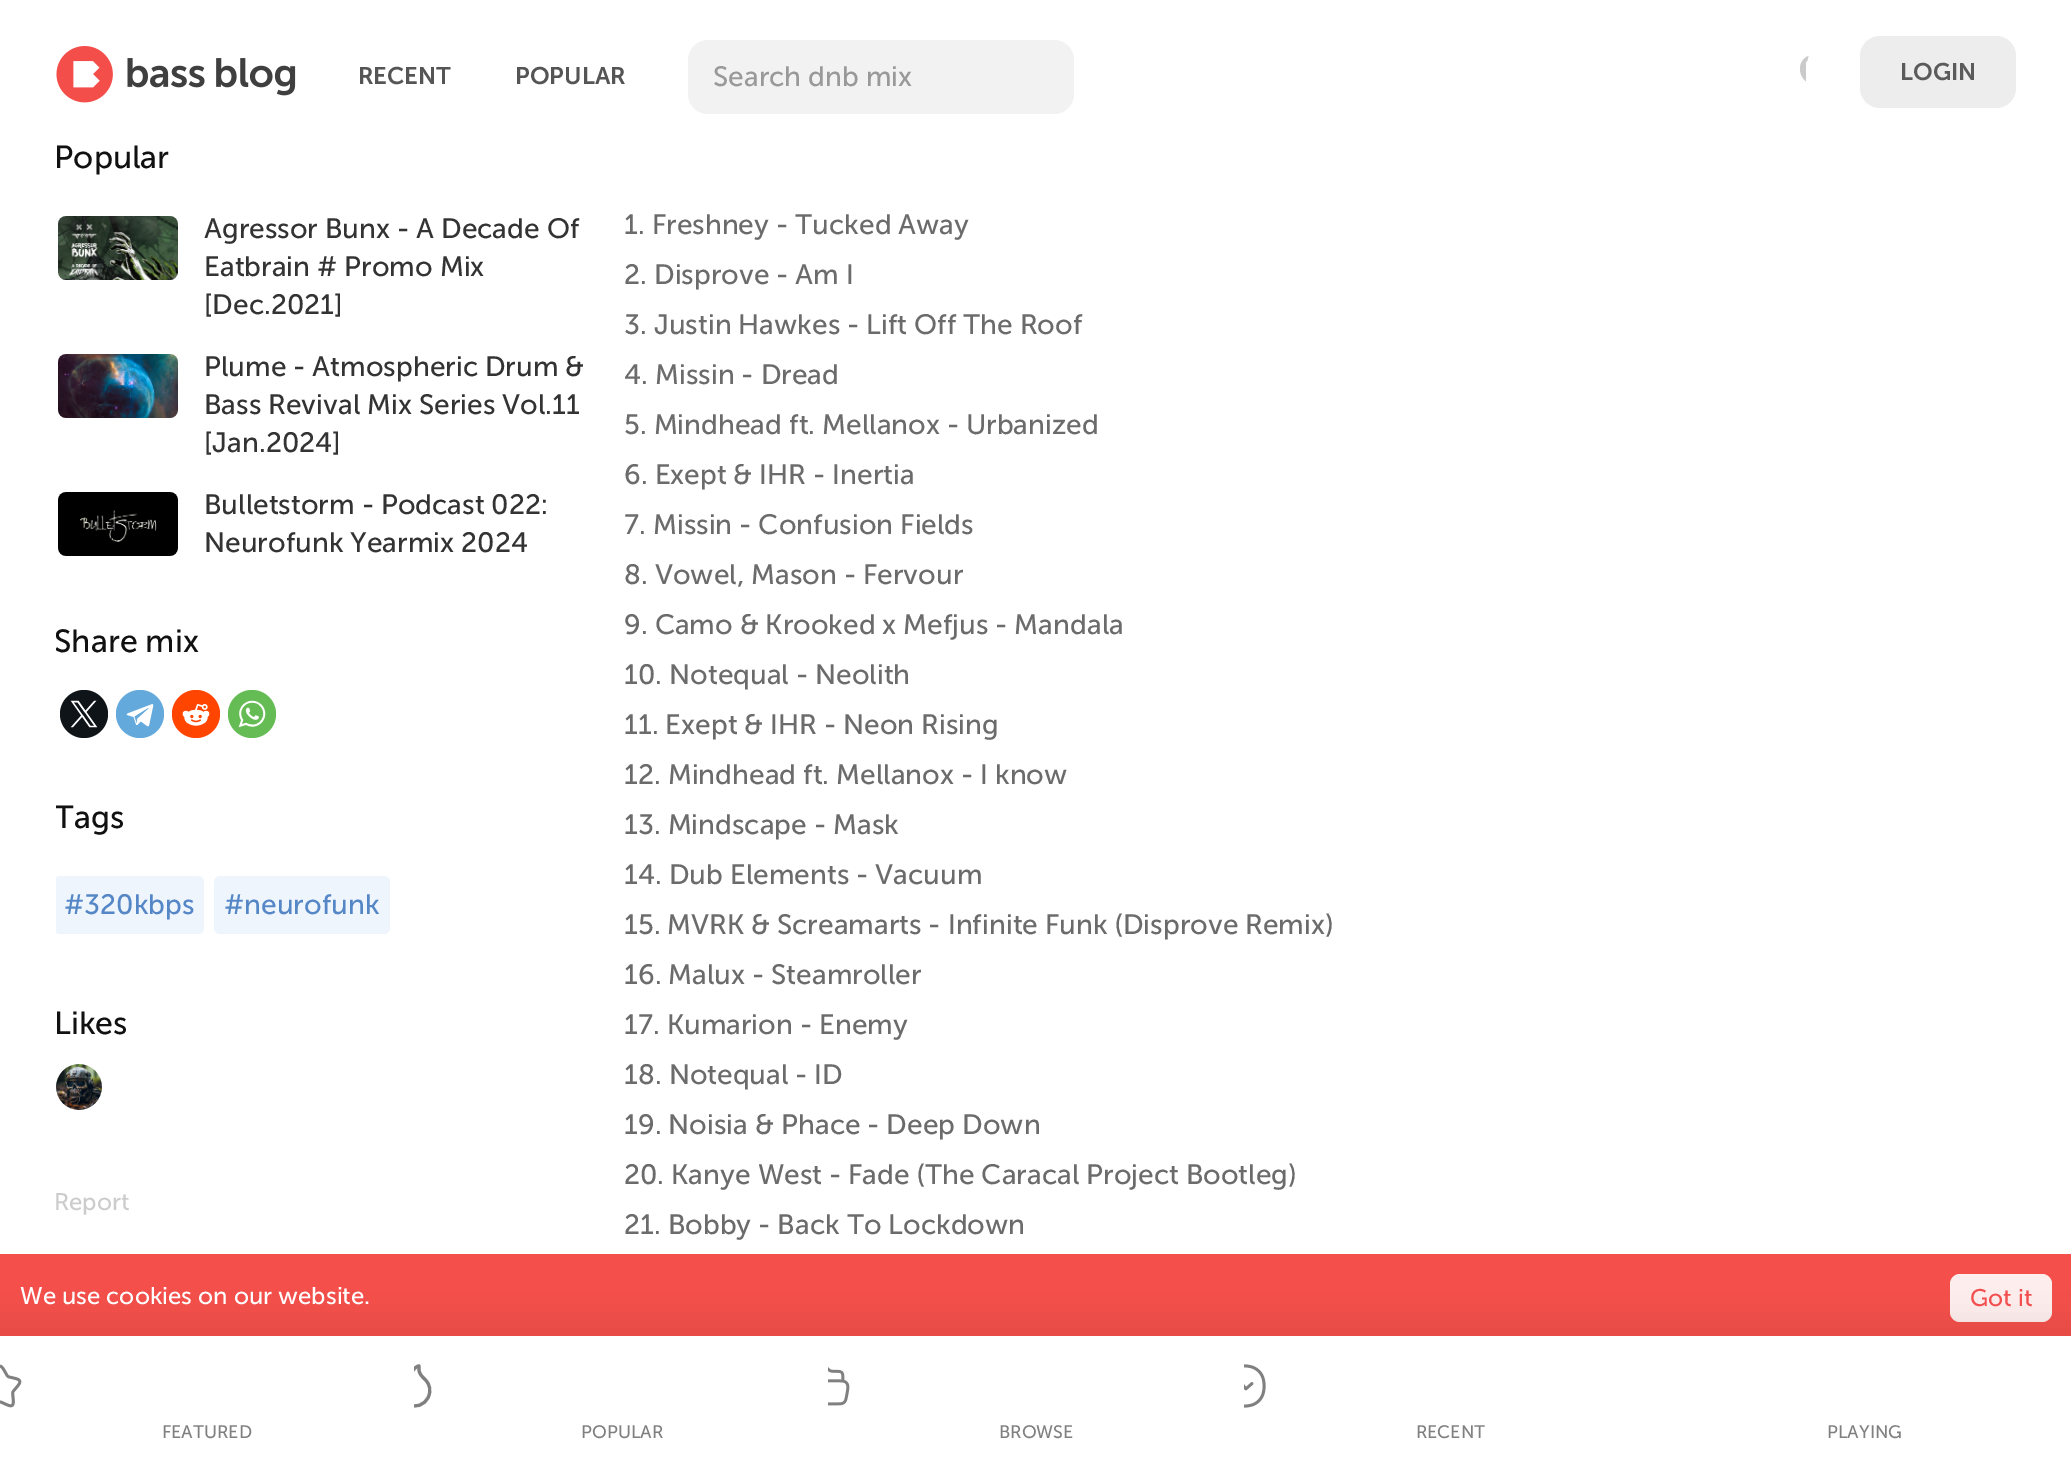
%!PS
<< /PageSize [2071 1472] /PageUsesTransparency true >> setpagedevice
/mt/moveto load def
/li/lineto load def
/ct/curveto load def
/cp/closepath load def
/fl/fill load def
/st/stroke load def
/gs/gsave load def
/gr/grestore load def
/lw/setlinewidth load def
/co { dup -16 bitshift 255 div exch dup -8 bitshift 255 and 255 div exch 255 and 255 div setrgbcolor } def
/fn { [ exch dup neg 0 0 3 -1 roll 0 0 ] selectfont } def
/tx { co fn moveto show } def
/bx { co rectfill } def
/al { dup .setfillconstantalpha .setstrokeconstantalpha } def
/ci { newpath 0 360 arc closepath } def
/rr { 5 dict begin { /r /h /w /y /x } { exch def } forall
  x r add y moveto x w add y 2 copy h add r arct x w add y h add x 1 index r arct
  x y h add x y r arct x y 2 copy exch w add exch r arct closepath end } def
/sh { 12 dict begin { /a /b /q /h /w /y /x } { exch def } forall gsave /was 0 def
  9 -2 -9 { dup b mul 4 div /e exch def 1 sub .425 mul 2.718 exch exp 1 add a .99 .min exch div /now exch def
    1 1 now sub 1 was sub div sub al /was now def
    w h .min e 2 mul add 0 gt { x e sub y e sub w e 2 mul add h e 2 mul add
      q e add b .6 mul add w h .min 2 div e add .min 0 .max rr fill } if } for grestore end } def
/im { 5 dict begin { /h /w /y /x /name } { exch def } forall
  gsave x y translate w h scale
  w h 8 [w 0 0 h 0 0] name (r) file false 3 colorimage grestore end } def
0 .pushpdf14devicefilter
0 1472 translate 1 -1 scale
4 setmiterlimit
0 0 2071 1472 16#FFFFFF bx
(media/1.raw) 56 46 240 57 im
16#F2F2F2 co
688 40 386 74 20 rr fl
16#CACACA co
1808.5 56 mt 1793 62 1800 88.5 1819 83.5 ct 1823 82.5 1826.5 79.5 1828 75.5 ct 1816.5 80 1804 67.5 1808.5 56 ct cp fl
16#FFFFFF co
1807 61 24 24 3 rr gs fl gr
2 lw
st
16#EDEDED co
1860 36 156 72 20 rr fl
(media/2.raw) 58 216 120 64 im
(media/3.raw) 58 354 120 64 im
(media/4.raw) 58 492 120 64 im
16#0F1419 co
84 714 24 ci fl
(media/5.raw) 70 700 28 28 im
16#64A9DC co
140 714 24 ci fl
(media/6.raw) 126 704 28 23 im
16#FF4500 co
196 714 24 ci fl
(media/7.raw) 182 704 28 22 im
16#65BC54 co
252 714 24 ci fl
(media/8.raw) 238 700 28 28 im
gs
56 0 1960 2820 rectclip
16#EFF5FD co
54 876 150 58 6 rr fl
gr
16#EFF5FD co
214 876 176 58 6 rr fl
(media/9.raw) 56 1064 46 46 im
0 1254 2071 82 16#F44F4A bx
16#FEEDED co
1950 1274 102 48 10 rr fl
16#000000 co
-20 1316 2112 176 0 15 .05 sh
0 1336 2071 136 16#FFFFFF bx
(media/10.raw) 0 1364 22 44 im
gs
414 1364 22 44 rectclip
16#808080 co
3.1 lw
399.5 1384 mt 402.5 1379.5 li 406 1376 404.5 1378 406.5 1381 ct 408 1383 li 408.5 1378.5 li 410 1374 413.5 1367.5 418.5 1366 ct 419.5 1365.5 419 1369 419 1370 ct 419.5 1375 423 1377 425.5 1380 ct 430 1384.5 431 1391 428.5 1396.5 ct 420.5 1415.5 391 1403.5 399.5 1384 ct cp st
gr
(media/11.raw) 828 1367 22 39 im
(media/12.raw) 1244 1364 22 44 im
(RECENT) 358 84 /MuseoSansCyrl-SemiBold 24 16#555555 tx
(POPULAR) 515 84 /MuseoSansCyrl-SemiBold 24 16#555555 tx
(Search dnb mix) 713 86 /MuseoSansCyrl-Regular 28 16#999999 tx
(LOGIN) 1900 80 /MuseoSansCyrl-SemiBold 24 16#5B5B5B tx
(Popular) 54 168 /MuseoSansCyrl-Regular 32 16#111111 tx
(Agressor Bunx - A Decade Of) 204 238 /MuseoSansCyrl-Regular 28 16#333333 tx
(Eatbrain # Promo Mix) 204 276 /MuseoSansCyrl-Regular 28 16#333333 tx
([Dec.2021]) 204 314 /MuseoSansCyrl-Regular 28 16#333333 tx
(Plume - Atmospheric Drum &) 204 376 /MuseoSansCyrl-Regular 28 16#333333 tx
(Bass Revival Mix Series Vol.11) 204 414 /MuseoSansCyrl-Regular 28 16#333333 tx
([Jan.2024]) 204 452 /MuseoSansCyrl-Regular 28 16#333333 tx
(Bulletstorm - Podcast 022:) 204 514 /MuseoSansCyrl-Regular 28 16#333333 tx
(Neurofunk Yearmix 2024) 204 552 /MuseoSansCyrl-Regular 28 16#333333 tx
(1. Freshney - Tucked Away) 624 234 /MuseoSansCyrl-Regular 28 16#6B6B6B tx
(2. Disprove - Am I) 624 284 /MuseoSansCyrl-Regular 28 16#6B6B6B tx
(3. Justin Hawkes - Lift Off The Roof) 624 334 /MuseoSansCyrl-Regular 28 16#6B6B6B tx
(4. Missin - Dread) 624 384 /MuseoSansCyrl-Regular 28 16#6B6B6B tx
(5. Mindhead ft. Mellanox - Urbanized) 624 434 /MuseoSansCyrl-Regular 28 16#6B6B6B tx
(6. Exept & IHR - Inertia) 624 484 /MuseoSansCyrl-Regular 28 16#6B6B6B tx
(7. Missin - Confusion Fields) 624 534 /MuseoSansCyrl-Regular 28 16#6B6B6B tx
(8. Vowel, Mason - Fervour) 624 584 /MuseoSansCyrl-Regular 28 16#6B6B6B tx
(9. Camo & Krooked x Mefjus - Mandala) 624 634 /MuseoSansCyrl-Regular 28 16#6B6B6B tx
(10. Notequal - Neolith) 624 684 /MuseoSansCyrl-Regular 28 16#6B6B6B tx
(11. Exept & IHR - Neon Rising) 624 734 /MuseoSansCyrl-Regular 28 16#6B6B6B tx
(12. Mindhead ft. Mellanox - I know) 624 784 /MuseoSansCyrl-Regular 28 16#6B6B6B tx
(13. Mindscape - Mask) 624 834 /MuseoSansCyrl-Regular 28 16#6B6B6B tx
(14. Dub Elements - Vacuum) 624 884 /MuseoSansCyrl-Regular 28 16#6B6B6B tx
(15. MVRK & Screamarts - Infinite Funk \(Disprove Remix\)) 624 934 /MuseoSansCyrl-Regular 28 16#6B6B6B tx
(16. Malux - Steamroller) 624 984 /MuseoSansCyrl-Regular 28 16#6B6B6B tx
(17. Kumarion - Enemy) 624 1034 /MuseoSansCyrl-Regular 28 16#6B6B6B tx
(18. Notequal - ID) 624 1084 /MuseoSansCyrl-Regular 28 16#6B6B6B tx
(19. Noisia & Phace - Deep Down) 624 1134 /MuseoSansCyrl-Regular 28 16#6B6B6B tx
(20. Kanye West - Fade \(The Caracal Project Bootleg\)) 624 1184 /MuseoSansCyrl-Regular 28 16#6B6B6B tx
(21. Bobby - Back To Lockdown) 624 1234 /MuseoSansCyrl-Regular 28 16#6B6B6B tx
gs
56 0 1960 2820 rectclip
(Share mix) 54 652 /MuseoSansCyrl-Regular 32 16#111111 tx
gr
gs
56 768 566 186 rectclip
(Tags) 54 828 /MuseoSansCyrl-Regular 32 16#111111 tx
gr
(#320kbps) 64 914 /MuseoSansCyrl-Regular 28 16#5587C7 tx
(#neurofunk) 224 914 /MuseoSansCyrl-Regular 28 16#5587C7 tx
(Likes) 54 1034 /MuseoSansCyrl-Regular 32 16#111111 tx
(Report) 54 1210 /MuseoSansCyrl-Regular 24 16#CCCCCC tx
(We use cookies on our website.) 20 1304 /MuseoSansCyrl-Regular 24 16#FFFFFF tx
(Got it) 1970 1306 /MuseoSansCyrl-Regular 24 16#F24F4F tx
(FEATURED) 162 1438 /MuseoSansCyrl-Regular 18 16#808080 tx
(POPULAR) 581 1438 /MuseoSansCyrl-Regular 18 16#808080 tx
(BROWSE) 999 1438 /MuseoSansCyrl-Regular 18 16#808080 tx
(RECENT) 1416 1438 /MuseoSansCyrl-Regular 18 16#808080 tx
(PLAYING) 1827 1438 /MuseoSansCyrl-Regular 18 16#808080 tx
.poppdf14devicefilter showpage
